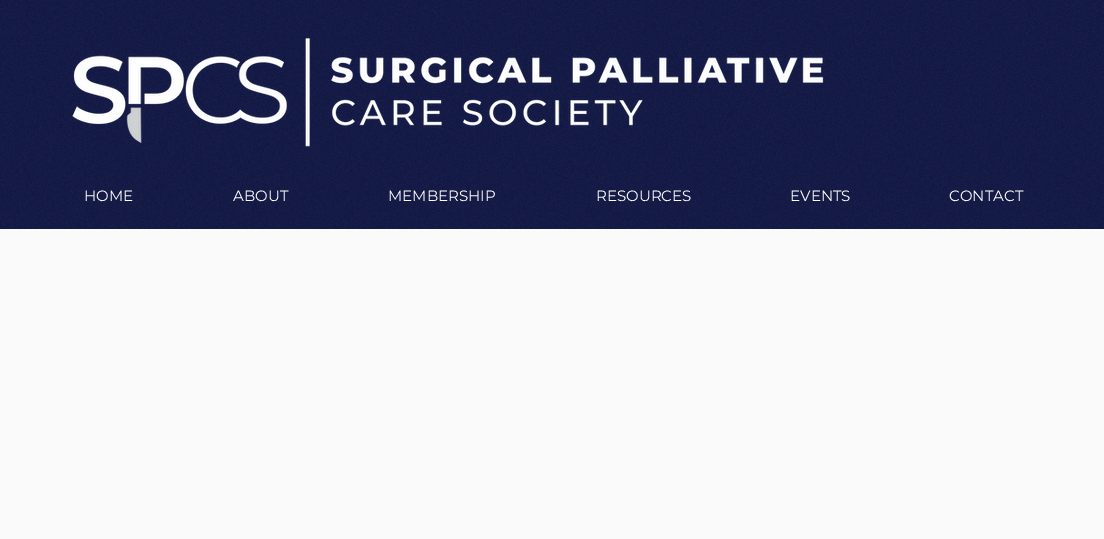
%!PS
<< /PageSize [1104 539] >> setpagedevice
/co { dup -16 bitshift 255 div exch dup -8 bitshift 255 and 255 div exch 255 and 255 div setrgbcolor } def
/fn { [ exch dup neg 0 0 3 -1 roll 0 0 ] selectfont } def
/tx { co fn moveto show } def
/bx { co rectfill } def
/im { 5 dict begin { /h /w /y /x /name } { exch def } forall
  gsave x y translate w h scale
  w h 8 [w 0 0 h 0 0] name (r) file false 3 colorimage grestore end } def
0 539 translate 1 -1 scale
4 setmiterlimit
0 0 1104 539 16#131946 bx
(media/1.raw) 0 0 1104 229 im
(media/2.raw) 72 38 753 109 im
0 229 1104 310 16#FAFAFA bx
(HOME) 84 201 /Montserrat-Regular 15 16#FFFFFF tx
(ABOUT) 233 201 /Montserrat-Regular 15 16#FFFFFF tx
(MEMBERSHIP) 388 201 /Montserrat-Regular 15 16#FFFFFF tx
(RESOURCES) 596 201 /Montserrat-Regular 15 16#FFFFFF tx
(EVENTS) 790 201 /Montserrat-Regular 15 16#FFFFFF tx
(CONTACT) 949 201 /Montserrat-Regular 15 16#FFFFFF tx
showpage
